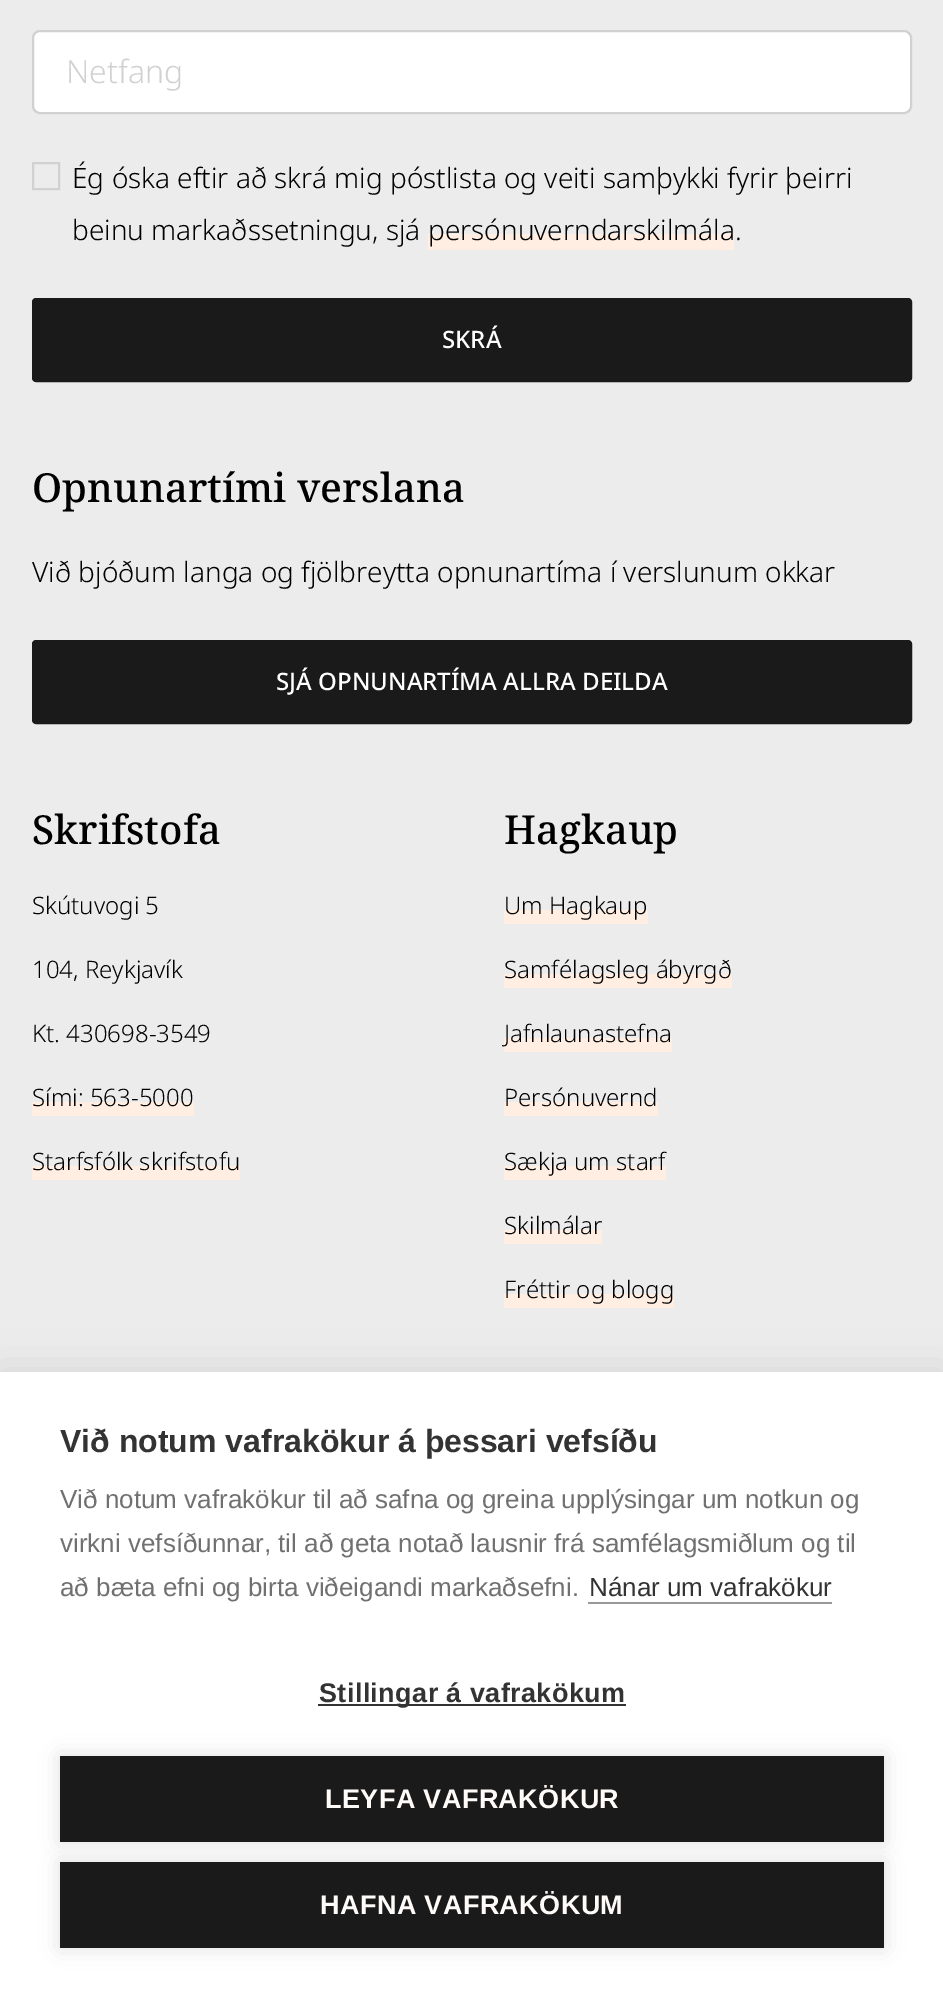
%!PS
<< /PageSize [943 1998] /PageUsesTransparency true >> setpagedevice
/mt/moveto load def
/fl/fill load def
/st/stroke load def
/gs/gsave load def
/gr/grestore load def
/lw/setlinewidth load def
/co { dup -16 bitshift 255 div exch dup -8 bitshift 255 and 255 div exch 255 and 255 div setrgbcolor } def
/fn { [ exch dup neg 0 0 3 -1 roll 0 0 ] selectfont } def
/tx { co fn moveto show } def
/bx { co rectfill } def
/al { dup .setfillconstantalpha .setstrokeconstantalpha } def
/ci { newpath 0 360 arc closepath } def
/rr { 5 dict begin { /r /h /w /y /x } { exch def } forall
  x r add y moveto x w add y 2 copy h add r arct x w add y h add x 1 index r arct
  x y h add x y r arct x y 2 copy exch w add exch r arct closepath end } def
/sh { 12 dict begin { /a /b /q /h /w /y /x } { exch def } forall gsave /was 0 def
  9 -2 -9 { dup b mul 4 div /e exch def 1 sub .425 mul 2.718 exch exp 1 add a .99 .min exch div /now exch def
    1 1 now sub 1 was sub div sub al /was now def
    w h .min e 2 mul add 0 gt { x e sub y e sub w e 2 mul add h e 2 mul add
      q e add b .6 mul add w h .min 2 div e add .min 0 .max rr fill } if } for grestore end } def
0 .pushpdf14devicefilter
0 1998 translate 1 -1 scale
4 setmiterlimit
0 0 943 1998 16#ECECEC bx
16#FFFFFF co
33 31 878 82 7 rr gs fl gr
16#D1D1D1 co
2 lw
st
33 163 26 26 rectstroke
428 234 306 16 16#FFEEE1 bx
16#1A1A1A co
33 299 878 82 3 rr gs fl gr
st
33 641 878 82 3 rr gs fl gr
st
32 1102 162 14 16#FFEEE1 bx
32 1166 208 14 16#FFEEE1 bx
504 910 144 14 16#FFEEE1 bx
504 974 228 14 16#FFEEE1 bx
504 1038 168 14 16#FFEEE1 bx
504 1102 154 14 16#FFEEE1 bx
504 1166 162 14 16#FFEEE1 bx
504 1230 98 14 16#FFEEE1 bx
504 1294 170 14 16#FFEEE1 bx
16#000000 co
0 1372 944 626 0 20 .1 sh
0 1372 943 626 16#FFFFFF bx
588 1602 244 2 16#999999 bx
318 1704 308 2 16#333333 bx
16#000000 co
60 1756 824 86 0 10 .12 sh
60 1756 824 86 16#1A1A1A bx
16#000000 co
60 1862 824 86 0 10 .12 sh
60 1862 824 86 16#1A1A1A bx
(Netfang) 66 83 /NotoSans-Light 32 16#D1D1D1 tx
(Ég óska eftir að skrá mig póstlista og veiti samþykki fyrir þeirri) 72 188 /NotoSans-Light 28 16#000000 tx
(beinu markaðssetningu, sjá) 72 240 /NotoSans-Light 28 16#000000 tx
(persónuverndarskilmála.) 428 240 /NotoSans-Light 28 16#000000 tx
(SKRÁ) 442 348 /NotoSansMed-Medium 24 16#FFFFFF tx
16#1A1A1A co
432 340 12 ci fl
512 340 12 ci fl
(Opnunartími verslana) 32 502 /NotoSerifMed-Medium 40 16#000000 tx
(Við bjóðum langa og fjölbreytta opnunartíma í verslunum okkar) 32 582 /NotoSans-Light 28 16#000000 tx
(SJÁ OPNUNARTÍMA ALLRA DEILDA) 276 690 /NotoSansMed-Medium 24 16#FFFFFF tx
(Skrifstofa) 32 844 /NotoSerifMed-Medium 40 16#000000 tx
(Skútuvogi 5) 32 914 /NotoSans-Light 24 16#000000 tx
(104, Reykjavík) 32 978 /NotoSans-Light 24 16#000000 tx
(Kt. 430698-3549) 32 1042 /NotoSans-Light 24 16#000000 tx
(Sími: 563-5000) 32 1106 /NotoSans-Light 24 16#000000 tx
(Starfsfólk skrifstofu) 32 1170 /NotoSans-Light 24 16#000000 tx
(Hagkaup) 504 844 /NotoSerifMed-Medium 40 16#000000 tx
(Um Hagkaup) 504 914 /NotoSans-Light 24 16#000000 tx
(Samfélagsleg ábyrgð) 504 978 /NotoSans-Light 24 16#000000 tx
(Jafnlaunastefna) 504 1042 /NotoSans-Light 24 16#000000 tx
(Persónuvernd) 504 1106 /NotoSans-Light 24 16#000000 tx
(Sækja um starf) 504 1170 /NotoSans-Light 24 16#000000 tx
(Skilmálar) 504 1234 /NotoSans-Light 24 16#000000 tx
(Fréttir og blogg) 504 1298 /NotoSans-Light 24 16#000000 tx
(Við notum vafrakökur á þessari vefsíðu) 60 1452 /LiberationSans-Bold 32 16#333333 tx
(Við notum vafrakökur til að safna og greina upplýsingar um notkun og) 60 1508 /LiberationSans-Regular 26 16#707070 tx
(virkni vefsíðunnar, til að geta notað lausnir frá samfélagsmiðlum og til) 60 1552 /LiberationSans-Regular 26 16#707070 tx
(að bæta efni og birta viðeigandi markaðsefni.) 60 1596 /LiberationSans-Regular 26 16#707070 tx
(Nánar um vafrakökur) 589 1596 /LiberationSans-Regular 26 16#333333 tx
/LiberationSans-Bold 27 fn
319 1702 mt .4 0 (Stillingar á vafrakökum) ashow
16#FFFBF8 co
325 1808 mt .4 0 (LEYFA VAFRAKÖKUR) ashow
320 1914 mt .4 0 (HAFNA VAFRAKÖKUM) ashow
.poppdf14devicefilter showpage
